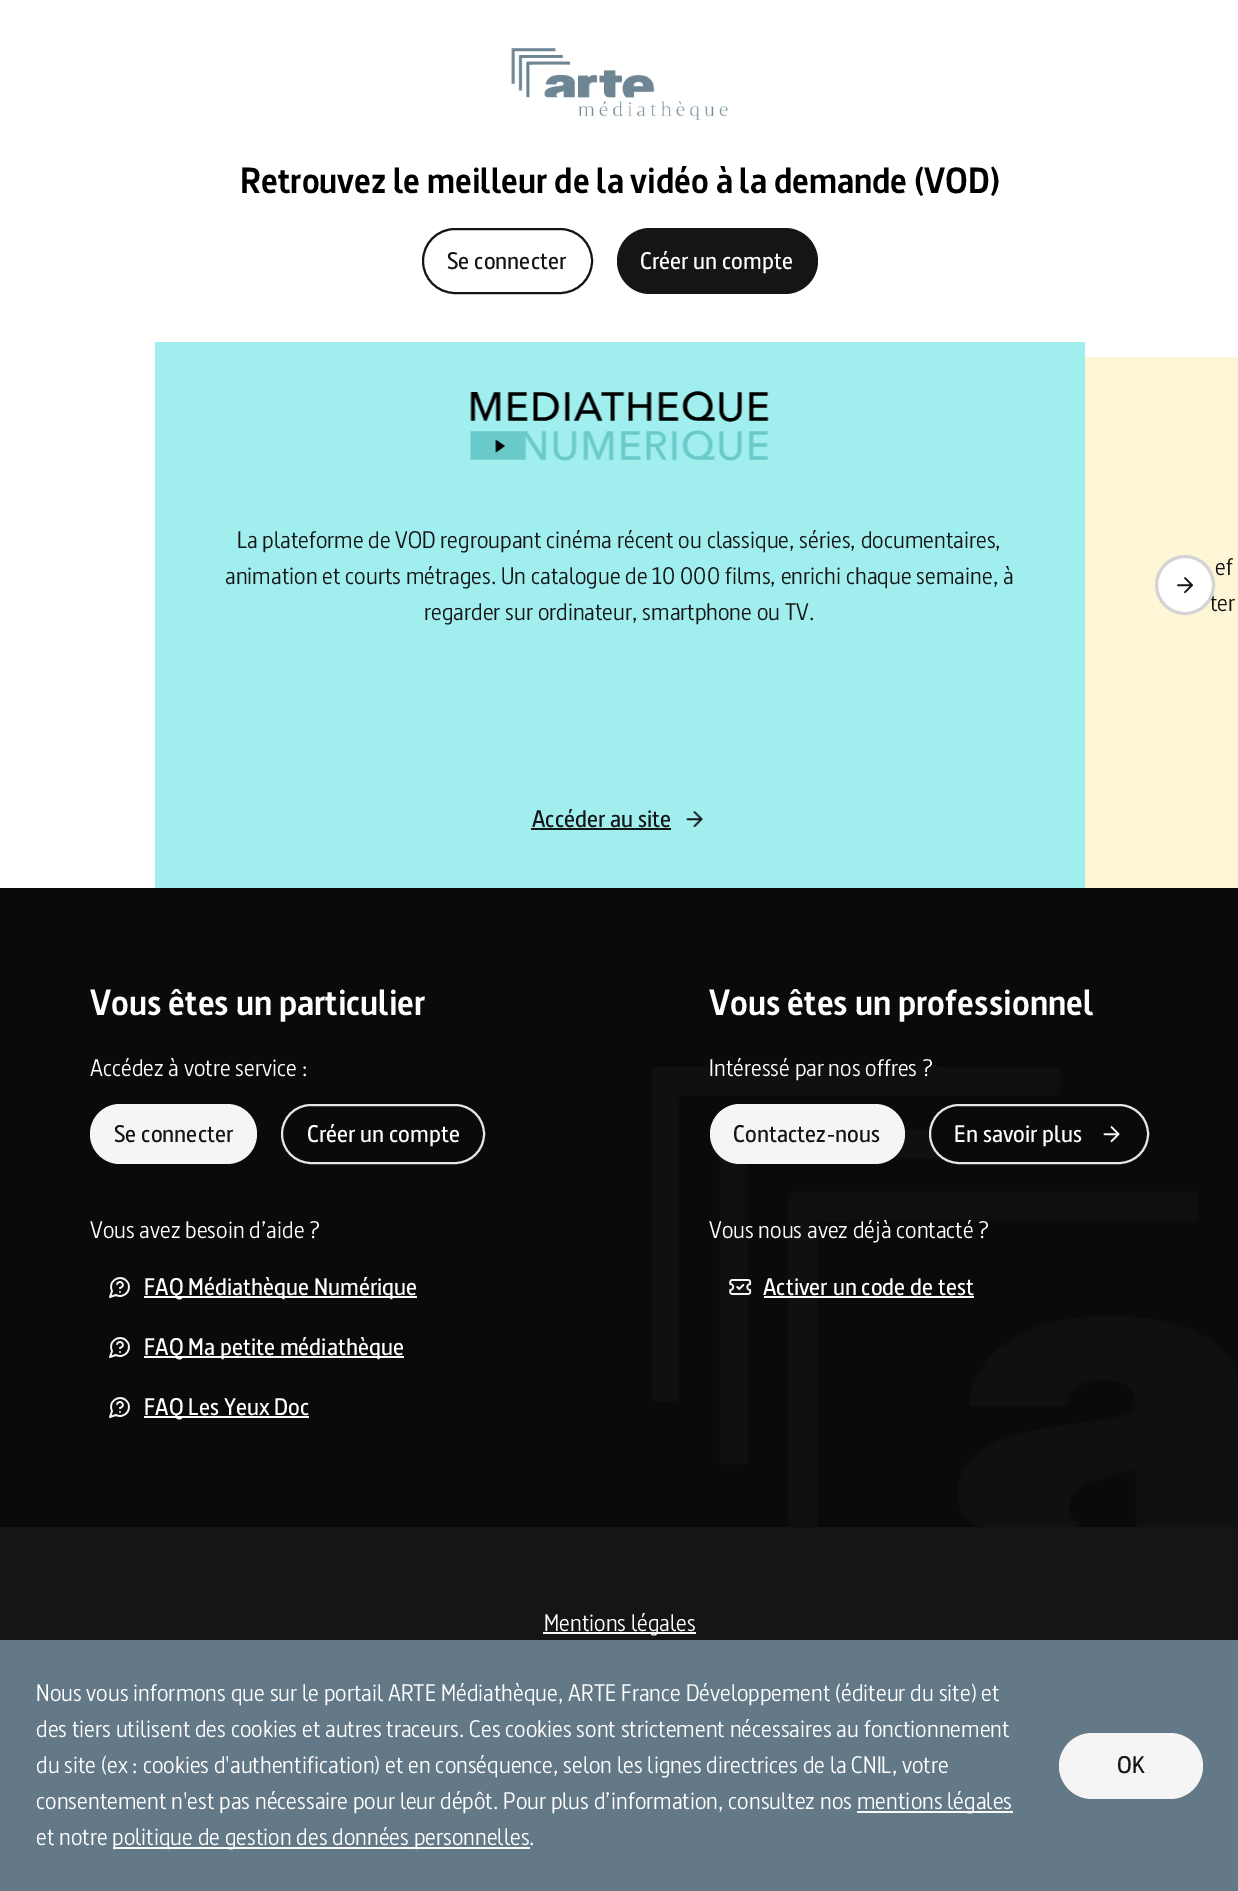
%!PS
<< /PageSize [1238 1891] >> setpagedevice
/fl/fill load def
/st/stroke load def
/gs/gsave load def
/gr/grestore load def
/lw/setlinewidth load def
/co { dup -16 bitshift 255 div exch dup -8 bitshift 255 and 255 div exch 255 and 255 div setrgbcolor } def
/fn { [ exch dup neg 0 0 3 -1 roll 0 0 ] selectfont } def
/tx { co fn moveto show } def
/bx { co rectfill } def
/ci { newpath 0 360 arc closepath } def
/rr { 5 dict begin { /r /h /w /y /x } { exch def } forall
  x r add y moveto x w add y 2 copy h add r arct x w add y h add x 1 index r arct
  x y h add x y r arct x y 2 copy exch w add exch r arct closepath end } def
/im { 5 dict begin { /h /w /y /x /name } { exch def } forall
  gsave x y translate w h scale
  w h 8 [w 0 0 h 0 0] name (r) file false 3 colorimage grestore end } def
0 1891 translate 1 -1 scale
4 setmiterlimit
0 0 1238 1891 16#FFFFFF bx
(media/1.raw) 511 48 217 72 im
16#151515 co
2 lw
423 229 169 64 32 rr st
617 228 201 66 33 rr fl
155 342 930 546 16#A0EEEE bx
(media/2.raw) 470 391 299 70 im
531 828 140 2 16#151515 bx
(media/3.raw) 686 811 17 17 im
1085 357 153 531 16#FDF7D7 bx
0 888 1238 639 16#0A0A0A bx
16#F5F5F5 co
90 1104 167 60 30 rr fl
16#E5E5E5 co
282 1105 202 58 29 rr st
(media/5.raw) 109 1277 21 21 im
144 1296 273 2 16#FAFAFA bx
(media/5.raw) 109 1337 21 21 im
144 1356 260 2 16#FAFAFA bx
(media/5.raw) 109 1397 21 21 im
144 1416 165 2 16#FAFAFA bx
(media/8.raw) 651 1067 587 460 im
16#F5F5F5 co
710 1104 195 60 30 rr fl
16#0A0A0A co
930 1105 218 58 29 rr gs fl gr
16#E5E5E5 co
st
(media/6.raw) 1103 1126 17 17 im
(media/7.raw) 729 1279 23 16 im
764 1296 210 2 16#FAFAFA bx
0 1527 1238 113 16#151515 bx
543 1632 153 2 16#FAFAFA bx
0 1640 1238 251 16#647987 bx
857 1811 156 2 16#FAFAFA bx
113 1847 417 2 16#FAFAFA bx
16#F5F5F5 co
1059 1733 144 66 33 rr fl
(Retrouvez le meilleur de la vidéo à la demande \(VOD\)) 240 193 /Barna-Bold 36 16#000000 tx
(Se connecter) 447 269 /Barna-SemiBold 24 16#151515 tx
(Créer un compte) 640 269 /Barna-SemiBold 24 16#FFFFFF tx
(La plateforme de VOD regroupant cinéma récent ou classique, séries, documentaires,) 237 548 /Barna-Regular 24 16#151515 tx
(animation et courts métrages. Un catalogue de 10 000 films, enrichi chaque semaine, à) 225 584 /Barna-Regular 24 16#151515 tx
(regarder sur ordinateur, smartphone ou TV.) 424 620 /Barna-Regular 24 16#151515 tx
(Accéder au site) 532 827 /Barna-SemiBold 24 16#151515 tx
(ef) 1215 575 /Barna-Regular 24 16#151515 tx
(ter) 1210 611 /Barna-Regular 24 16#151515 tx
16#FFFFFF co
1185 585 28.5 ci gs fl gr
16#D4D4D4 co
3 lw
st
(media/4.raw) 1177 577 16 17 im
(Vous êtes un particulier) 90 1015 /Barna-Bold 36 16#FFFFFF tx
(Accédez à votre service :) 90 1076 /Barna-Regular 24 16#FFFFFF tx
(Se connecter) 114 1142 /Barna-SemiBold 24 16#151515 tx
(Créer un compte) 307 1142 /Barna-SemiBold 24 16#FFFFFF tx
(Vous avez besoin d’aide ?) 90 1238 /Barna-Regular 24 16#FFFFFF tx
(FAQ Médiathèque Numérique) 144 1295 /Barna-SemiBold 24 16#FFFFFF tx
(FAQ Ma petite médiathèque) 144 1355 /Barna-SemiBold 24 16#FFFFFF tx
(FAQ Les Yeux Doc) 144 1415 /Barna-SemiBold 24 16#FFFFFF tx
(Vous êtes un professionnel) 709 1015 /Barna-Bold 36 16#FFFFFF tx
(Intéressé par nos offres ?) 709 1076 /Barna-Regular 24 16#FFFFFF tx
(Contactez-nous) 733 1142 /Barna-SemiBold 24 16#151515 tx
(En savoir plus) 954 1142 /Barna-SemiBold 24 16#FFFFFF tx
(Vous nous avez déjà contacté ?) 709 1238 /Barna-Regular 24 16#FFFFFF tx
(Activer un code de test) 763 1295 /Barna-SemiBold 24 16#FFFFFF tx
(Mentions légales) 544 1631 /Barna-Regular 24 16#FFFFFF tx
(Nous vous informons que sur le portail ARTE Médiathèque, ARTE France Développement \(éditeur du site\) et) 36 1701 /Barna-Regular 24 16#FFFFFF tx
(des tiers utilisent des cookies et autres traceurs. Ces cookies sont strictement nécessaires au fonctionnement) 36 1737 /Barna-Regular 24 16#FFFFFF tx
(du site \(ex : cookies d'authentification\) et en conséquence, selon les lignes directrices de la CNIL, votre) 36 1773 /Barna-Regular 24 16#FFFFFF tx
(consentement n'est pas nécessaire pour leur dépôt. Pour plus d’information, consultez nos) 36 1809 /Barna-Regular 24 16#FFFFFF tx
(mentions légales) 857 1809 /Barna-Regular 24 16#FFFFFF tx
(et notre) 36 1845 /Barna-Regular 24 16#FFFFFF tx
(politique de gestion des données personnelles.) 112 1845 /Barna-Regular 24 16#FFFFFF tx
(OK) 1117 1773 /Barna-SemiBold 24 16#151515 tx
showpage
